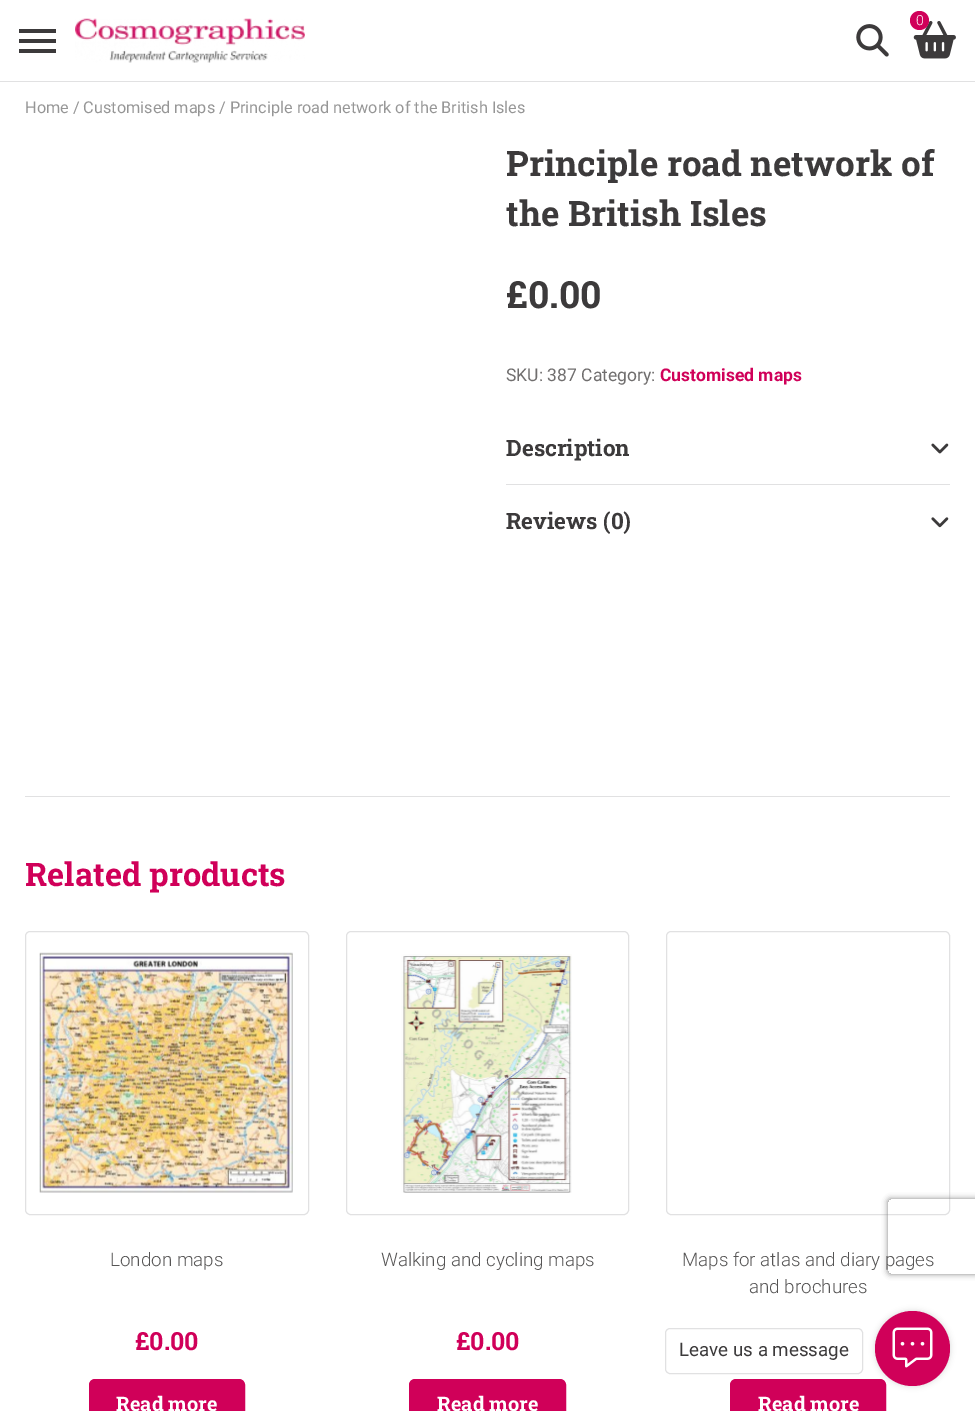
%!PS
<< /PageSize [975 1411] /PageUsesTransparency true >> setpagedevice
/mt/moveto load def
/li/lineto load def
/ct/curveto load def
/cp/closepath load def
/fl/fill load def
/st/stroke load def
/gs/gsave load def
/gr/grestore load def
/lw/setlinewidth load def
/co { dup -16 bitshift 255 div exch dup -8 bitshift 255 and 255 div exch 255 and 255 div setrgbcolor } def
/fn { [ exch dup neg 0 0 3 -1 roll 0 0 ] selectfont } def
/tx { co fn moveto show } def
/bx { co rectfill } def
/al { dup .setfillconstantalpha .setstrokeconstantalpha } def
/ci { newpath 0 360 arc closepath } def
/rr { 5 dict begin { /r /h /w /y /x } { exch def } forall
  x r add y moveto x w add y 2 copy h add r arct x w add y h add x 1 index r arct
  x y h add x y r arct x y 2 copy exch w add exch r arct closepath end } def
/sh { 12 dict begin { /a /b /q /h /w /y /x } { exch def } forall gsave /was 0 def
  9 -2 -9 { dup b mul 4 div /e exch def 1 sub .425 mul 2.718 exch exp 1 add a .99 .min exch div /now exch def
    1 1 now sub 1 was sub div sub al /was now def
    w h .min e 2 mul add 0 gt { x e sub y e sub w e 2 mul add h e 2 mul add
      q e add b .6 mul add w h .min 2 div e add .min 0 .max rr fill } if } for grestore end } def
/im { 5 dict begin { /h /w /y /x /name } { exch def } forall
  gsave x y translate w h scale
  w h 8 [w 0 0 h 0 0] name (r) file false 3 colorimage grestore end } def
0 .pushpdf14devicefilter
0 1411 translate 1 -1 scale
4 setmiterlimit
0 0 975 1411 16#FFFFFF bx
0 81 975 1 16#E1E1E2 bx
19 29 37 4 16#3C3A3B bx
19 39 37 4 16#3C3A3B bx
19 49 37 4 16#3C3A3B bx
(media/1.raw) 75 18 230 45 im
(media/2.raw) 856 24 33 33 im
(media/3.raw) 913 21 43 38 im
16#D00059 co
919.5 20.5 9.5 ci fl
(media/4.raw) 931 443 18 11 im
506 484 444 1 16#E1E1E2 bx
(media/5.raw) 931 517 18 11 im
25 796 925 1 16#E1E1E2 bx
25.5 931.5 283 283 4.5 rr st
(media/6.raw) 39 952 254 241 im
16#D00059 co
90.5 1380.5 153 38 4.5 rr gs fl gr
3 lw
st
16#E1E1E2 co
1 lw
346.5 931.5 282 283 4.5 rr st
(media/7.raw) 401 954 171 239 im
16#D00059 co
410.5 1380.5 154 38 4.5 rr gs fl gr
3 lw
st
16#E1E1E2 co
1 lw
666.5 931.5 283 283 4.5 rr st
16#D00059 co
731.5 1380.5 153 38 4.5 rr gs fl gr
3 lw
st
gs
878 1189 mt 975 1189 li 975 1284 li 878 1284 li cp 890.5 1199 mt 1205.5 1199 li 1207 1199 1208 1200 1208 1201.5 ct 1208 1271.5 li 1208 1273 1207 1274 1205.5 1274 ct 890.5 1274 li 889 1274 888 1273 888 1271.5 ct 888 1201.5 li 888 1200 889 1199 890.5 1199 ct cp eoclip newpath
16#808080 co
888 1199 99 75 2.5 3 1 sh
gr
16#E1E1E2 co
1 lw
665.5 1328.5 197 45 4.5 rr st
16#000000 co
875 1311 75 75 37.5 3 .15 sh
16#D00059 co
912.5 1348.5 37.5 ci fl
(media/8.raw) 892 1327 41 41 im
(0) 916 25 /Roboto-Light 14 16#FFFFFF tx
(Home / Customised maps / Principle road network of the British Isles) 25 113 /Roboto-Regular 16.25 16#969696 tx
(Principle road network of) 506 176 /RobotoSlab-Bold 35 16#3C3A3B tx
(the British Isles) 506 226 /RobotoSlab-Bold 35 16#3C3A3B tx
(£0.00) 506 308 /RobotoSlab-Bold 37.5 16#3C3A3B tx
(SKU: 387 Category:) 506 381 /Roboto-Regular 17.5 16#706E6E tx
(Customised maps) 660 381 /Roboto-Bold 17.5 16#D00059 tx
(Description) 506 456 /RobotoSlab-Bold 22.5 16#3C3A3B tx
(Reviews \(0\)) 506 529 /RobotoSlab-Bold 22.5 16#3C3A3B tx
(Related products) 25 886 /RobotoSlab-Bold 32.5 16#D00059 tx
(London maps) 110 1266 /Roboto-Light 18.75 16#565555 tx
(£0.00) 135 1350 /RobotoSlab-Bold 25 16#D00059 tx
(Read more) 116 1411 /RobotoSlab-Bold 20 16#FFFFFF tx
(Walking and cycling maps) 381 1266 /Roboto-Light 18.75 16#565555 tx
(£0.00) 456 1350 /RobotoSlab-Bold 25 16#D00059 tx
(Read more) 437 1411 /RobotoSlab-Bold 20 16#FFFFFF tx
(Maps for atlas and diary pages) 682 1266 /Roboto-Light 18.75 16#565555 tx
(and brochures) 749 1293 /Roboto-Light 18.75 16#565555 tx
(Read more) 758 1411 /RobotoSlab-Bold 20 16#FFFFFF tx
(Leave us a message) 679 1356 /Roboto-Regular 18.75 16#3C3A3B tx
.poppdf14devicefilter showpage
